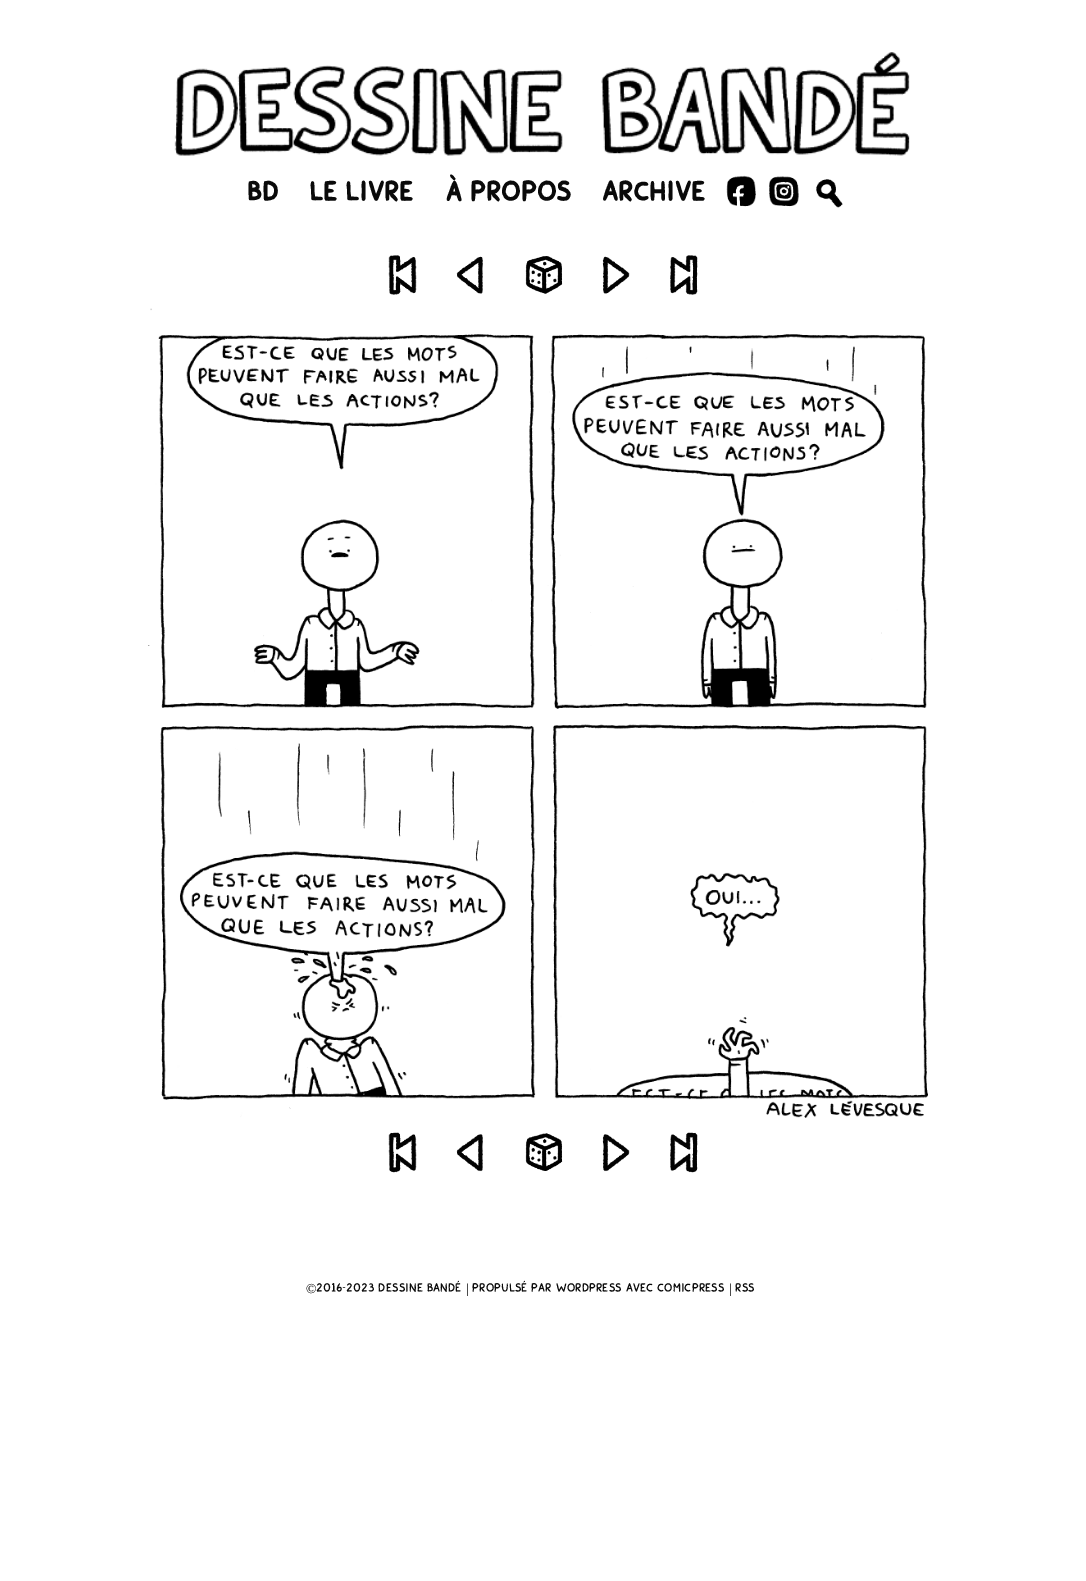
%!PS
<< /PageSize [1086 1581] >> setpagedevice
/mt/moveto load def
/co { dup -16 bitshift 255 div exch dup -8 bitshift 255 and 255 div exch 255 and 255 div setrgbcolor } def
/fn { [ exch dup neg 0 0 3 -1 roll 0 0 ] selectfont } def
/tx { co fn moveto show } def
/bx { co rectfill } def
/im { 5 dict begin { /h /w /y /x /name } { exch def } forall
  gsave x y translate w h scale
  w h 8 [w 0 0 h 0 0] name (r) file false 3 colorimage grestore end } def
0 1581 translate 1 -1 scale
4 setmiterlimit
0 0 1086 1581 16#FFFFFF bx
(media/1.raw) 174 52 736 104 im
(media/2.raw) 726 175 30 32 im
(media/3.raw) 769 176 30 31 im
(media/4.raw) 816 179 27 29 im
(media/5.raw) 388 255 29 40 im
(media/6.raw) 456 256 27 38 im
(media/7.raw) 525 256 38 38 im
(media/8.raw) 602 256 28 38 im
(media/9.raw) 670 255 28 40 im
(media/10.raw) 148 308 780 810 im
(media/11.raw) 388 1132 29 41 im
(media/12.raw) 456 1134 27 38 im
(media/13.raw) 525 1133 38 38 im
(media/14.raw) 602 1134 28 38 im
(media/15.raw) 670 1132 28 41 im
(BD) 247 204 /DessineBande-Bold 31.5 16#0A0A0A tx
309 204 mt -1 0 32 (LE LIVRE) widthshow
445 204 mt -1 0 32 (À PROPOS) widthshow
(ARCHIVE) 602 204 /DessineBande-Bold 31.5 16#0A0A0A tx
(©) 306 1293 /LiberationSerif-Regular 13.75 16#0A0A0A tx
(2016-2023 Dessine Bandé) 316 1293 /DessineBande-Regular 13.75 16#0A0A0A tx
(|) 466 1293 /LiberationSerif-Regular 13.75 16#0A0A0A tx
(Propulsé par WordPress) 472 1293 /DessineBande-Regular 13.75 16#0A0A0A tx
(avec ComicPress) 626 1293 /DessineBande-Regular 13.75 16#0A0A0A tx
(|) 729 1293 /LiberationSerif-Regular 13.75 16#0A0A0A tx
(RSS) 735 1293 /DessineBande-Regular 13.75 16#0A0A0A tx
showpage
